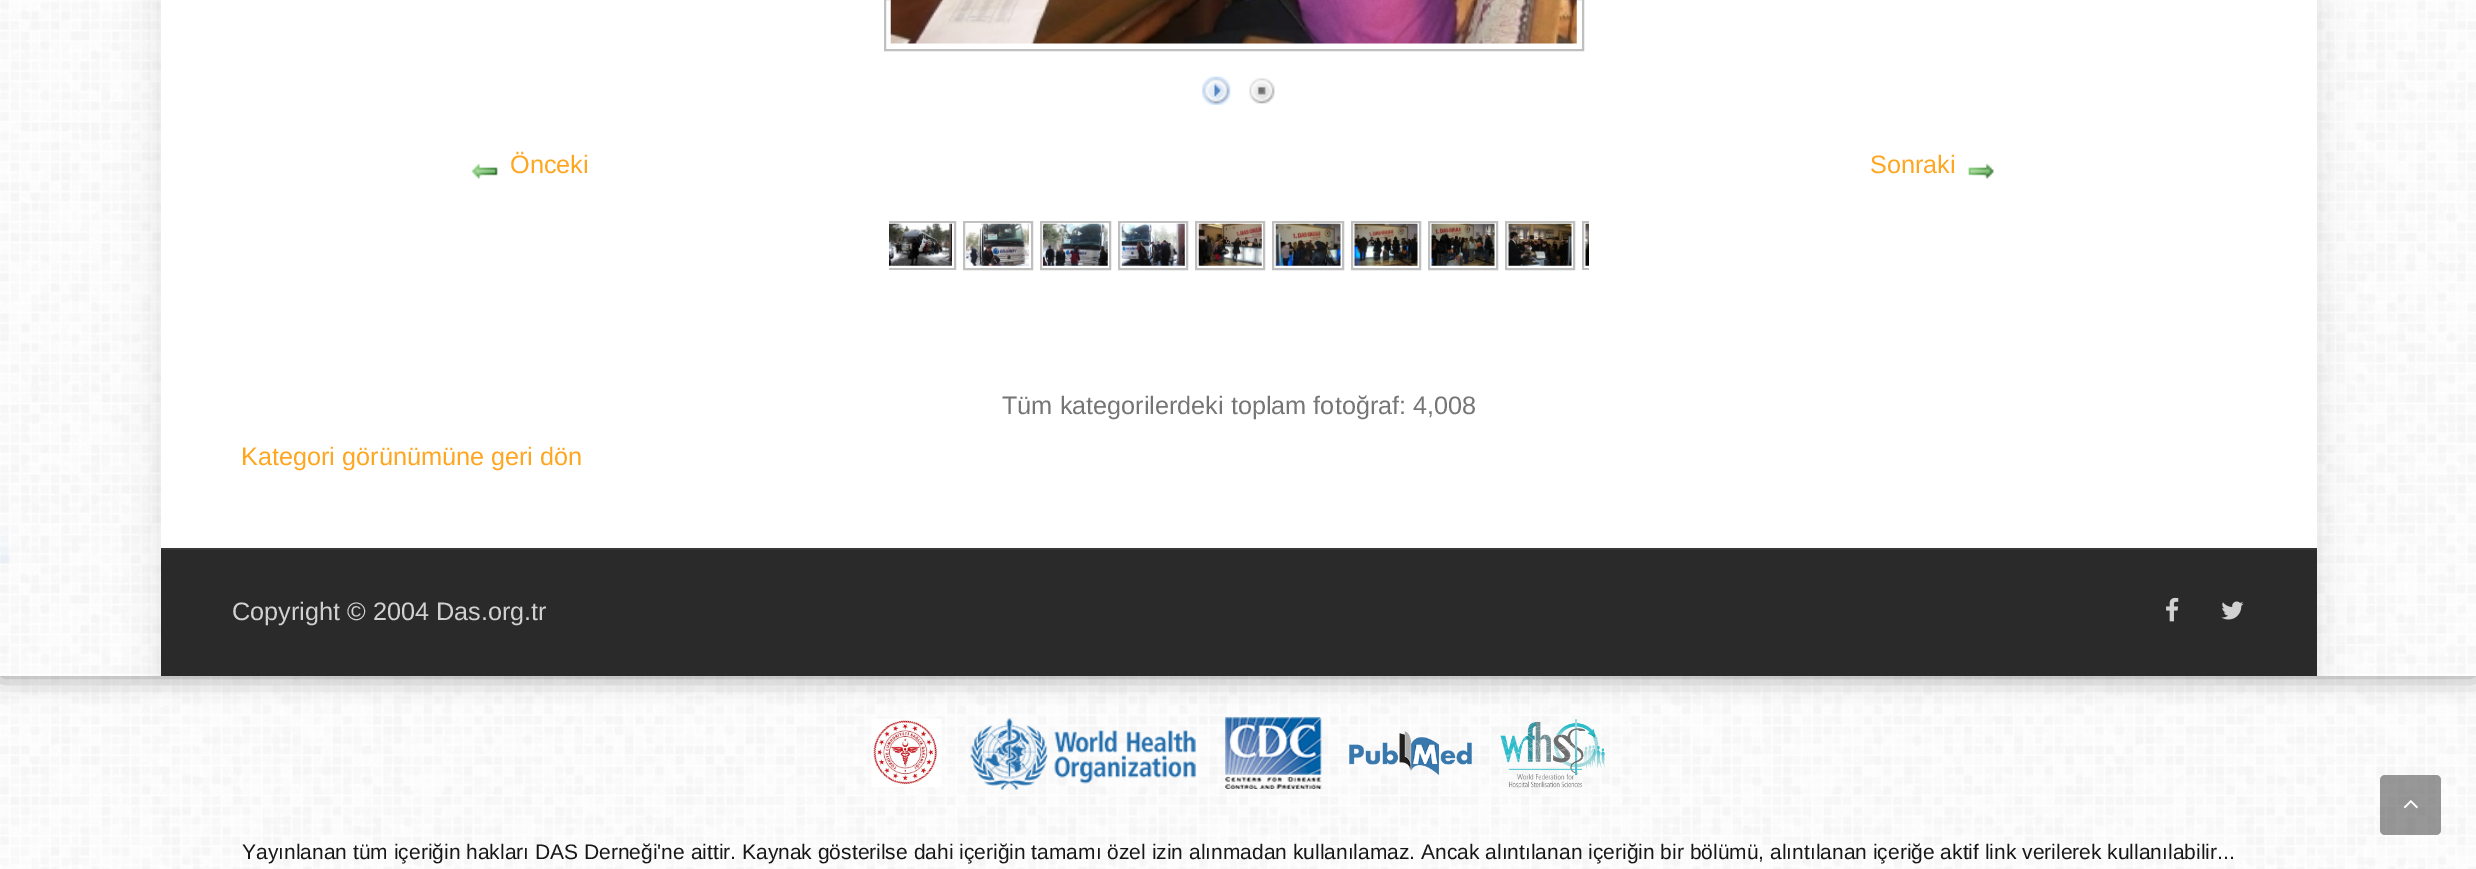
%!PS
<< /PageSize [2476 869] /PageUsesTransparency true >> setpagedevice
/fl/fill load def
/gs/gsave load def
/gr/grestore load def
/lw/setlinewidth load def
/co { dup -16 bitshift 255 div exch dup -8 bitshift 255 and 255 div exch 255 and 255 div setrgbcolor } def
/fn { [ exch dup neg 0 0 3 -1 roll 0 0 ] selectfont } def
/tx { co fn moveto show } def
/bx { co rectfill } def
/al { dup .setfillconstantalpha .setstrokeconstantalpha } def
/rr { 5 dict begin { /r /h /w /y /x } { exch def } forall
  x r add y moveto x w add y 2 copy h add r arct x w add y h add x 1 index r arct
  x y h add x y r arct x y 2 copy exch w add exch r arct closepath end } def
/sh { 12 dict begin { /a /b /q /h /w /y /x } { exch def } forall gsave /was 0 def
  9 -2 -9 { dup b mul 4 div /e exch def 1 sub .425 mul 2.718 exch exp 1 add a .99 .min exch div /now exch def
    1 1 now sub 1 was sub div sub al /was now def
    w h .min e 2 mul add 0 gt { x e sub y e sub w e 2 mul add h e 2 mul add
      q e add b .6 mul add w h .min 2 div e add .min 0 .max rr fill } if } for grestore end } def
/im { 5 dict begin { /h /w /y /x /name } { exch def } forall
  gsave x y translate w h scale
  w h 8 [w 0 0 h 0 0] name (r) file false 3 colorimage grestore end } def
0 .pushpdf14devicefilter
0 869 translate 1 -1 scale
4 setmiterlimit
0 0 2476 869 16#FFFFFF bx
(media/1.raw) 0 676 2476 193 im
16#000000 co
0 -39 2476 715 0 13 .4 sh
(media/2.raw) 0 0 2476 676 im
(media/21.raw) 871 719 71 68 im
(media/22.raw) 970 718 226 72 im
(media/23.raw) 1225 717 97 72 im
(media/24.raw) 1349 731 123 44 im
(media/25.raw) 1500 719 105 70 im
gs
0 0 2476 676 rectclip
161 -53 2156 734 0 17.5 .1 sh
gr
161 0 2156 548 16#FFFFFF bx
16#C0C0C0 co
2 lw
885 -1 698 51 rectstroke
(media/3.raw) 890 0 687 44 im
(media/4.raw) 1202 76 29 29 im
(media/5.raw) 1249 78 26 26 im
(media/6.raw) 472 163 26 16 im
(media/7.raw) 1968 163 26 16 im
gs
889 221 700 49 rectclip
887 222 68 47 rectstroke
gr
(media/8.raw) 889 223 63 43 im
964 222 68 47 rectstroke
(media/9.raw) 966 223 63 43 im
1041 222 69 47 rectstroke
(media/10.raw) 1043 223 65 43 im
1119 222 68 47 rectstroke
(media/11.raw) 1121 223 64 43 im
1196 222 68 47 rectstroke
(media/12.raw) 1198 223 64 43 im
1273 222 70 47 rectstroke
(media/13.raw) 1275 223 66 43 im
1352 222 68 47 rectstroke
(media/14.raw) 1354 223 64 43 im
1429 222 68 47 rectstroke
(media/15.raw) 1431 223 64 43 im
1506 222 68 47 rectstroke
(media/16.raw) 1508 223 64 43 im
gs
889 221 700 49 rectclip
1583 222 70 47 rectstroke
gr
(media/17.raw) 1585 223 4 43 im
161 550 2156 126 16#2A2A2A bx
161 548 2156 2 16#373737 bx
(media/18.raw) 2166 597 13 25 im
(media/19.raw) 2221 601 23 19 im
0.4 al
16#000000 co
2380 775 61 60 5 rr fl
1 al
(media/20.raw) 2403 800 15 9 im
(Önceki) 510 173 /LiberationSans-Regular 25.25 16#FFA621 tx
(Sonraki) 1870 173 /LiberationSans-Regular 25.25 16#FFA621 tx
(Tüm kategorilerdeki toplam fotoğraf: 4,008) 1002 414 /LiberationSans-Regular 25.25 16#757575 tx
(Kategori görünümüne geri dön) 241 465 /LiberationSans-Regular 25.25 16#FFA621 tx
(Copyright © 2004 Das.org.tr) 232 620 /LiberationSans-Regular 25.25 16#D1D1D1 tx
(Yayınlanan tüm içeriğin hakları DAS Derneği'ne aittir. Kaynak gösterilse dahi içeriğin tamamı özel izin alınmadan kullanılamaz. Ancak alıntılanan içeriğin bir bölümü, alıntılanan içeriğe aktif link verilerek kullanılabilir...) 242 859 /LiberationSans-Regular 21 16#171717 tx
.poppdf14devicefilter showpage
